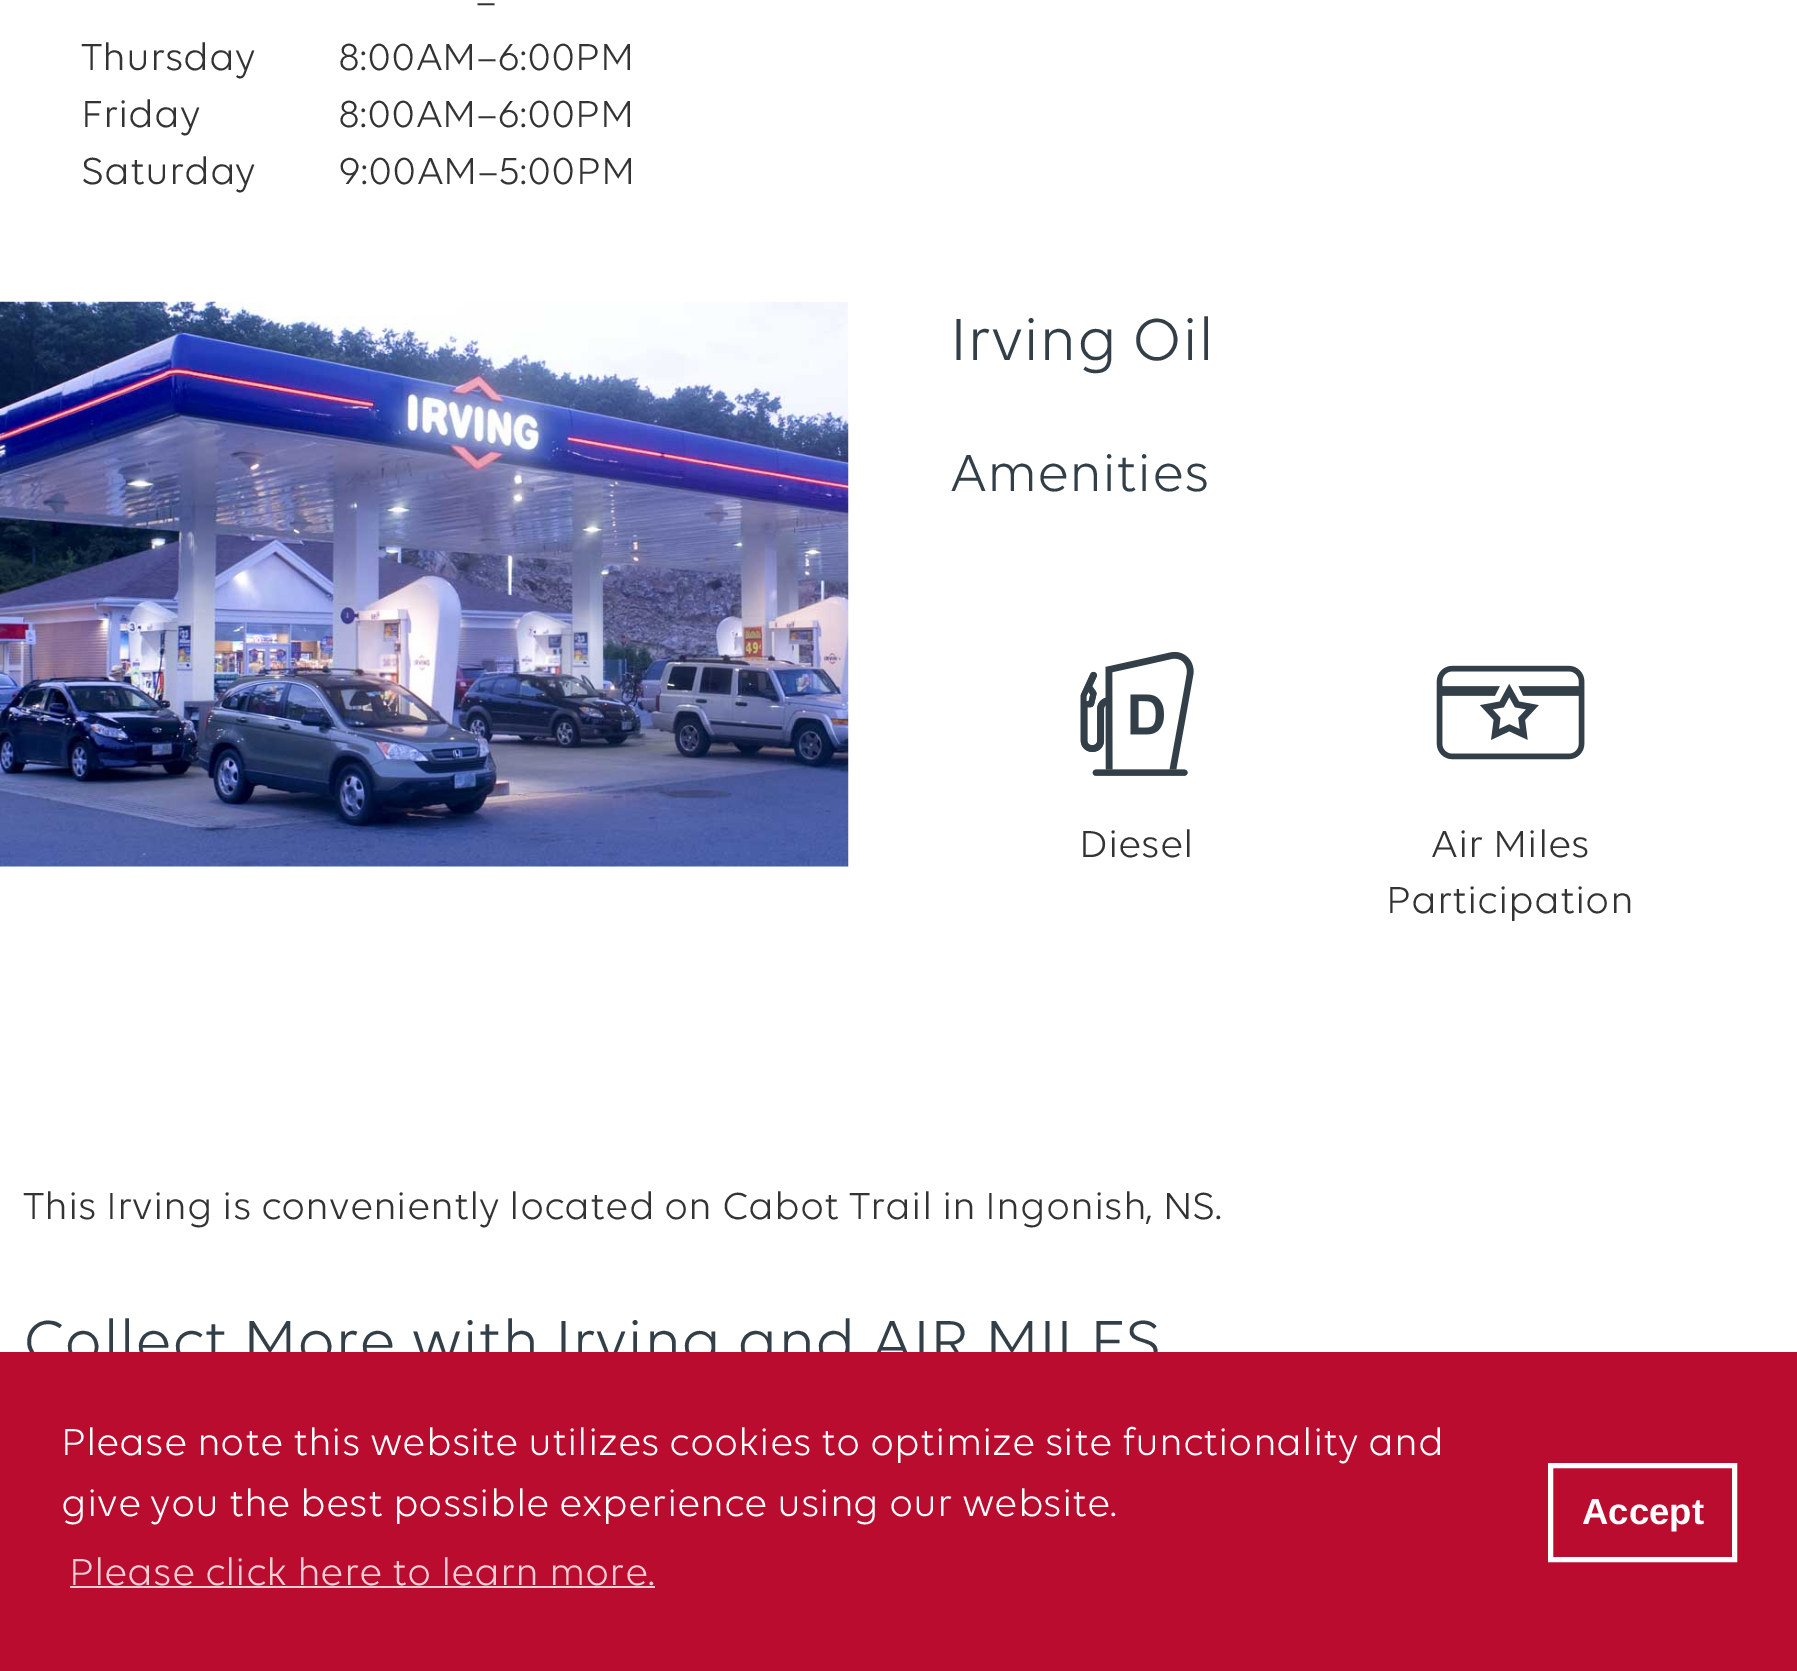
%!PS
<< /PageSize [1797 1671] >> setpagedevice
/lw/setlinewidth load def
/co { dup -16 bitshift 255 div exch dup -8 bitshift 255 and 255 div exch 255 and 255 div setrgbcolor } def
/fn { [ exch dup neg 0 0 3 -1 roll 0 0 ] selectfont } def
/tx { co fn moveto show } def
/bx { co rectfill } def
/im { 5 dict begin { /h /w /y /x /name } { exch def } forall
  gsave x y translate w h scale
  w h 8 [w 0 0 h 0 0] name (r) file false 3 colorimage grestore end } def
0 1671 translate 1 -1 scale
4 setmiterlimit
0 0 1797 1671 16#FFFFFF bx
(media/1.raw) 0 301 849 566 im
(media/2.raw) 1080 651 114 125 im
(media/3.raw) 1436 665 149 95 im
(–) 476 14 /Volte-Regular 40.5 16#333333 tx
(Thursday) 81 70 /Volte-Regular 40.5 16#333333 tx
(8:00AM–6:00PM) 338 70 /Volte-Regular 40.5 16#333333 tx
(Friday) 81 127 /Volte-Regular 40.5 16#333333 tx
(8:00AM–6:00PM) 338 127 /Volte-Regular 40.5 16#333333 tx
(Saturday) 81 184 /Volte-Regular 40.5 16#333333 tx
(9:00AM–5:00PM) 338 184 /Volte-Regular 40.5 16#333333 tx
(Irving Oil) 950 360 /Volte-Regular 63.75 16#333F48 tx
(Amenities) 950 491 /Volte-Regular 56 16#333F48 tx
(Diesel) 1079 857 /Volte-Regular 40.5 16#333333 tx
(Air Miles) 1431 857 /Volte-Regular 40.5 16#333333 tx
(Participation) 1386 913 /Volte-Regular 40.5 16#333333 tx
(This Irving is conveniently located on Cabot Trail in Ingonish, NS.) 23 1219 /Volte-Regular 40.5 16#333333 tx
(Collect More with Irving and AIR MILES) 23 1362 /Volte-Regular 63.75 16#333F48 tx
0 1352 1797 319 16#BA0C2F bx
(Please note this website utilizes cookies to optimize site functionality and) 61 1455 /Volte-Regular 40.5 16#FFFFFF tx
(give you the best possible experience using our website.) 61 1516 /Volte-Regular 40.5 16#FFFFFF tx
(Please click here to learn more.) 69 1585 /Volte-Regular 40.5 16#F1CED5 tx
70 1586 585 2 16#F1CED5 bx
16#FFFFFF co
5 lw
1550.5 1465.5 184 94 rectstroke
(Accept) 1582 1524 /LiberationSans-Bold 36.5 16#FFFFFF tx
showpage
